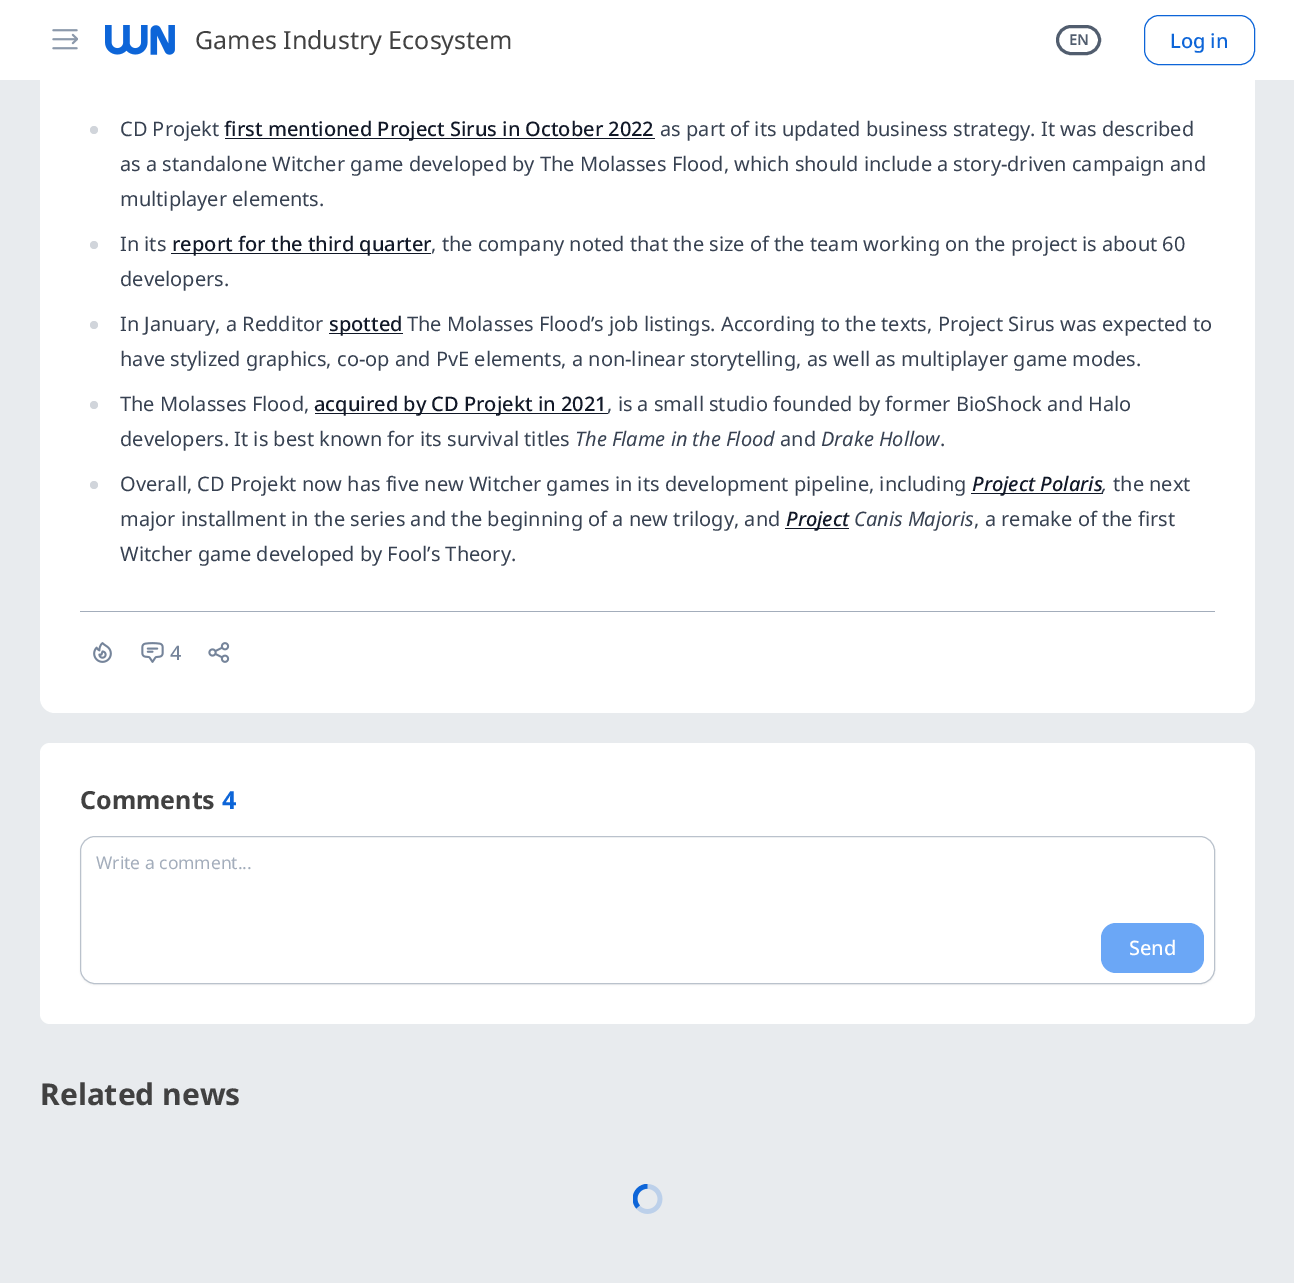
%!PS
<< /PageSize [1294 1283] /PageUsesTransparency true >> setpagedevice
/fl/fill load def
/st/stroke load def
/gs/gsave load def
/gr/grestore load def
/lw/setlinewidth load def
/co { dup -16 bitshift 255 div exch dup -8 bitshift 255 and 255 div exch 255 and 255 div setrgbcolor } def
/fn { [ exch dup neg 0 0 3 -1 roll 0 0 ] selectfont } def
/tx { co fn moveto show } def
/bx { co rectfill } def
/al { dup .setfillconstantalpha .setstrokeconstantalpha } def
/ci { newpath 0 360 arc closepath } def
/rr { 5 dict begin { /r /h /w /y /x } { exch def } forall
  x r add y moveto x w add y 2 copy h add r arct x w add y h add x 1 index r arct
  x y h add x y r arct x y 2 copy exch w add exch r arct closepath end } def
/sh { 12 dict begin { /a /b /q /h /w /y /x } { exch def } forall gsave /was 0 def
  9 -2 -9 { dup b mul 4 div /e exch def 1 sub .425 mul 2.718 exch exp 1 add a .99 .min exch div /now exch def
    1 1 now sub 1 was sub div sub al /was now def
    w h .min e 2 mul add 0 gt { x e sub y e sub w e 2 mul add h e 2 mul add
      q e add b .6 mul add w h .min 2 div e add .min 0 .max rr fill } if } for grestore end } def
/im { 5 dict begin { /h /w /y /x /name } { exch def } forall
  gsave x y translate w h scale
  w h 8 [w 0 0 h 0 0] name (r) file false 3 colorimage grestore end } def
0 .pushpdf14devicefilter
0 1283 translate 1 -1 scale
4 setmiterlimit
0 0 1294 1283 16#E8EBEE bx
16#FFFFFF co
40 -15 1215 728 15 rr fl
0 0 1294 80 16#FFFFFF bx
(media/1.raw) 52 29 26 21 im
(media/2.raw) 105 25 70 30 im
16#515D6E co
3 lw
1057.5 26.5 42 27 13.5 rr st
16#0D65D8 co
1 lw
1144.5 15.5 110 49 14.5 rr st
16#D1D5DB co
94 130 4 ci fl
225 138 430 1 16#111827 bx
16#D1D5DB co
94 245 4 ci fl
171 253 260 1 16#111827 bx
16#D1D5DB co
94 325 4 ci fl
329 333 74 1 16#111827 bx
16#D1D5DB co
94 405 4 ci fl
315 413 293 1 16#111827 bx
16#D1D5DB co
94 485 4 ci fl
971 493 132 1 16#111827 bx
785 528 64 1 16#111827 bx
80 611 1135 1 16#A3ADBB bx
(media/3.raw) 93 642 19 21 im
(media/4.raw) 141 642 23 21 im
(media/5.raw) 208 642 22 21 im
16#FFFFFF co
40 743 1215 281 10 rr fl
16#000000 co
80 838 1135 147 15 1 .05 sh
16#FFFFFF co
80.5 836.5 1134 147 14.5 rr gs fl gr
16#BAC2CC co
st
16#6BA7F6 co
1101 923 103 50 15 rr fl
(media/6.raw) 633 1184 30 30 im
(Games Industry Ecosystem) 195 49 /NotoSans-Regular 25 16#414141 tx
(EN) 1069 45 /NotoSans-SemiBold 15 16#515D6E tx
(Log in) 1170 48 /NotoSans-Medium 20 16#0D65D8 tx
(CD Projekt) 120 136 /NotoSans-Regular 20 16#374151 tx
(first mentioned Project Sirus in October 2022) 224 136 /NotoSans-Medium 20 16#111827 tx
(as part of its updated business strategy. It was described) 660 136 /NotoSans-Regular 20 16#374151 tx
(as a standalone Witcher game developed by The Molasses Flood, which should include a story-driven campaign and) 120 171 /NotoSans-Regular 20 16#374151 tx
(multiplayer elements.) 120 206 /NotoSans-Regular 20 16#374151 tx
(In its) 120 251 /NotoSans-Regular 20 16#374151 tx
(report for the third quarter) 172 251 /NotoSans-Medium 20 16#111827 tx
(, the company noted that the size of the team working on the project is about 60) 431 251 /NotoSans-Regular 20 16#374151 tx
(developers.) 120 286 /NotoSans-Regular 20 16#374151 tx
(In January, a Redditor) 120 331 /NotoSans-Regular 20 16#374151 tx
(spotted) 329 331 /NotoSans-Medium 20 16#111827 tx
(The Molasses Flood’s job listings. According to the texts, Project Sirus was expected to) 407 331 /NotoSans-Regular 20 16#374151 tx
(have stylized graphics, co-op and PvE elements, a non-linear storytelling, as well as multiplayer game modes.) 120 366 /NotoSans-Regular 20 16#374151 tx
(The Molasses Flood,) 120 411 /NotoSans-Regular 20 16#374151 tx
(acquired by CD Projekt in 2021) 314 411 /NotoSans-Medium 20 16#111827 tx
(, is a small studio founded by former BioShock and Halo) 607 411 /NotoSans-Regular 20 16#374151 tx
(developers. It is best known for its survival titles) 120 446 /NotoSans-Regular 20 16#374151 tx
(The Flame in the Flood) 575 446 /NotoSans-Italic 20 16#374151 tx
(and) 780 446 /NotoSans-Regular 20 16#374151 tx
(Drake Hollow) 821 446 /NotoSans-Italic 20 16#374151 tx
(.) 940 446 /NotoSans-Regular 20 16#374151 tx
(Overall, CD Projekt now has five new Witcher games in its development pipeline, including) 120 491 /NotoSans-Regular 20 16#374151 tx
(Project Polaris) 972 491 /NotoSans-MediumItalic 20 16#111827 tx
(the next) 1113 491 /NotoSans-Regular 20 16#374151 tx
(,) 1102 491 /NotoSans-Italic 20 16#374151 tx
(major installment in the series and the beginning of a new trilogy, and) 120 526 /NotoSans-Regular 20 16#374151 tx
(Project) 786 526 /NotoSans-MediumItalic 20 16#111827 tx
(Canis Majoris) 854 526 /NotoSans-Italic 20 16#374151 tx
(, a remake of the first) 974 526 /NotoSans-Regular 20 16#374151 tx
(Witcher game developed by Fool’s Theory.) 120 561 /NotoSans-Regular 20 16#374151 tx
(4) 170 660 /NotoSans-Medium 20 16#75849A tx
(Comments) 80 809 /NotoSans-Bold 25 16#414141 tx
(4) 222 809 /NotoSans-Bold 25 16#0D65D8 tx
(Write a comment...) 96 869 /NotoSans-Regular 17.5 16#A3ADBB tx
(Send) 1129 955 /NotoSans-Medium 20 16#FFFFFF tx
(Related news) 40 1105 /NotoSans-Bold 30 16#414141 tx
.poppdf14devicefilter showpage
